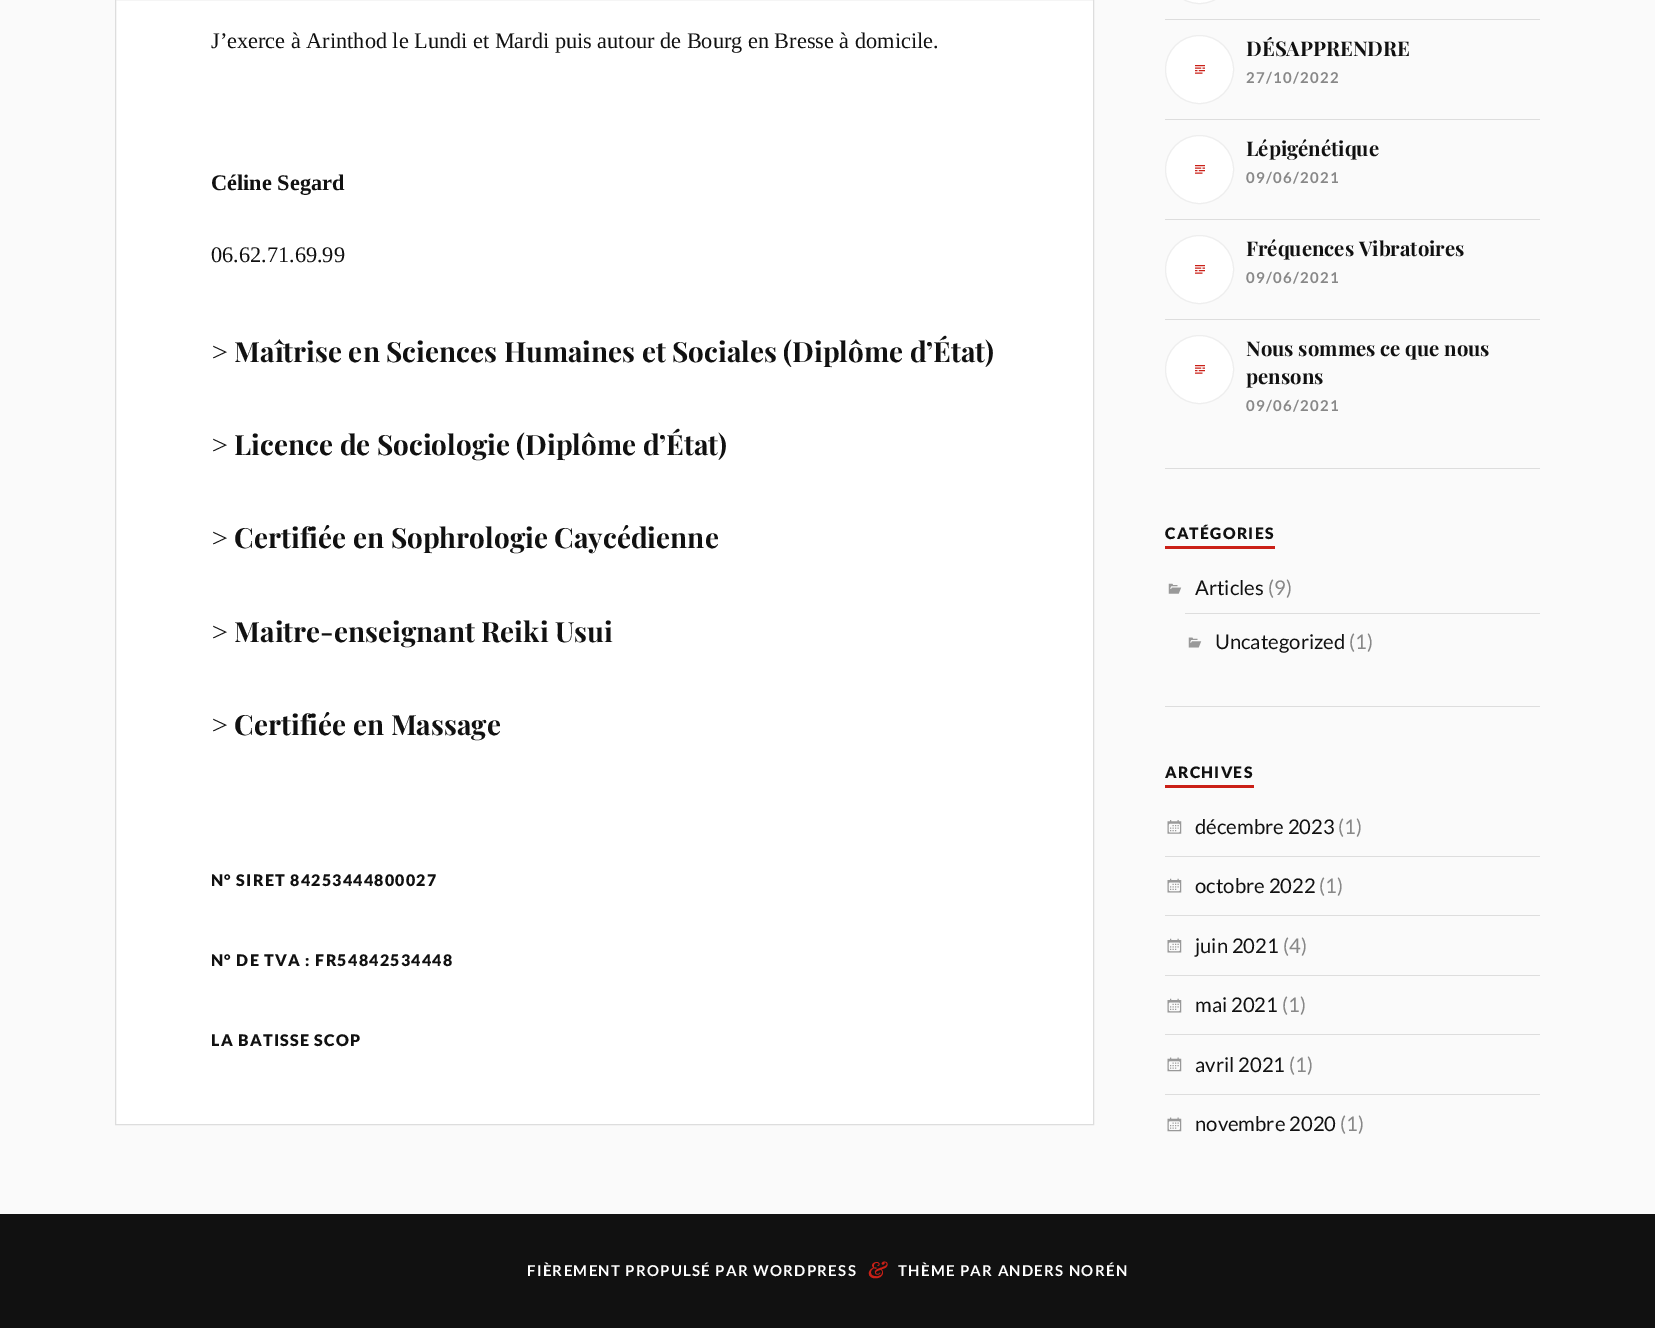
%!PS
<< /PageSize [1655 1328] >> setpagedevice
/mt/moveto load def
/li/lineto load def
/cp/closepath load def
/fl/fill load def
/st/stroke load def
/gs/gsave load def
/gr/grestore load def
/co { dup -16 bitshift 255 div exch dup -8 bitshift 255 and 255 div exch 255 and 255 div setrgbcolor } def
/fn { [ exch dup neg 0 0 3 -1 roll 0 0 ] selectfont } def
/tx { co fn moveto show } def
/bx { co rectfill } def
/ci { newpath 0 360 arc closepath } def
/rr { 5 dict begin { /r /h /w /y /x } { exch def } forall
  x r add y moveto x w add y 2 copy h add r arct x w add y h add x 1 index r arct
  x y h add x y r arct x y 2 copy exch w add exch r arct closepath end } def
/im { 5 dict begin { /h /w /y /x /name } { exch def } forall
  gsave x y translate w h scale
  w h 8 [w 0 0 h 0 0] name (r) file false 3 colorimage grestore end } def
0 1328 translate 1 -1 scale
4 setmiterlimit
0 0 1655 1328 16#FAFAFA bx
16#FFFFFF co
115.5 -.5 mt 1093.5 -.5 li 1093.5 1124.5 li 115.5 1124.5 li cp gs fl gr
16#DDDDDD co
st
1165 19 375 1 16#DDDDDD bx
16#FFFFFF co
1165.5 -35.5 68 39 34 rr gs fl gr
16#EEEEEE co
st
1165 119 375 1 16#DDDDDD bx
16#FFFFFF co
1199.5 69.5 34 ci gs fl gr
16#EEEEEE co
st
(media/1.raw) 1195 65 10 9 im
1165 219 375 1 16#DDDDDD bx
16#FFFFFF co
1199.5 169.5 34 ci gs fl gr
16#EEEEEE co
st
(media/1.raw) 1195 165 10 9 im
1165 319 375 1 16#DDDDDD bx
16#FFFFFF co
1199.5 269.5 34 ci gs fl gr
16#EEEEEE co
st
(media/1.raw) 1195 265 10 9 im
16#FFFFFF co
1199.5 369.5 34 ci gs fl gr
16#EEEEEE co
st
(media/1.raw) 1195 365 10 9 im
1165 468 375 1 16#DDDDDD bx
1165 546 110 3 16#CA2017 bx
(media/2.raw) 1168 583 14 11 im
1185 613 355 1 16#DDDDDD bx
(media/3.raw) 1188 637 14 11 im
1165 706 375 1 16#DDDDDD bx
1165 785 89 3 16#CA2017 bx
1165 856 375 1 16#DDDDDD bx
(media/4.raw) 1167 820 15 14 im
1165 915 375 1 16#DDDDDD bx
(media/5.raw) 1167 878 15 15 im
1165 975 375 1 16#DDDDDD bx
(media/5.raw) 1167 938 15 15 im
1165 1034 375 1 16#DDDDDD bx
(media/5.raw) 1167 998 15 15 im
1165 1094 375 1 16#DDDDDD bx
(media/6.raw) 1167 1057 15 15 im
(media/6.raw) 1167 1117 15 15 im
0 1214 1655 114 16#111111 bx
(J’exerce à Arinthod le Lundi et Mardi puis autour de Bourg en Bresse à domicile.) 211 48 /LiberationSerif-Regular 22.3 16#111111 tx
(Céline Segard) 211 190 /LiberationSerif-Bold 22.3 16#111111 tx
(06.62.71.69.99) 211 262 /LiberationSerif-Regular 22.3 16#111111 tx
(> Maîtrise en Sciences Humaines et Sociales \(Diplôme d’État\)) 211 362 /PlayfairDisplay-Bold 27.9 16#111111 tx
(> Licence de Sociologie \(Diplôme d’État\)) 211 455 /PlayfairDisplay-Bold 27.9 16#111111 tx
(> Certifiée en Sophrologie Caycédienne) 211 548 /PlayfairDisplay-Bold 27.9 16#111111 tx
(> Maitre-enseignant Reiki Usui) 211 642 /PlayfairDisplay-Bold 27.9 16#111111 tx
(> Certifiée en Massage) 211 735 /PlayfairDisplay-Bold 27.9 16#111111 tx
/Lato-Black 16 fn
211 886 mt 1.25 0 (N° SIRET 84253444800027) ashow
211 966 mt 1.25 0 (N° DE TVA : FR54842534448) ashow
211 1046 mt 1.25 0 (LA BATISSE SCOP) ashow
(DÉSAPPRENDRE) 1246 56 /PlayfairDisplay-Bold 20.25 16#111111 tx
/Lato-Bold 15 fn
16#888888 co
1246 83 mt 1.25 0 (27/10/2022) ashow
(Lépigénétique) 1246 156 /PlayfairDisplay-Bold 20.25 16#111111 tx
/Lato-Bold 15 fn
16#888888 co
1246 183 mt 1.25 0 (09/06/2021) ashow
(Fréquences Vibratoires) 1246 256 /PlayfairDisplay-Bold 20.25 16#111111 tx
/Lato-Bold 15 fn
16#888888 co
1246 283 mt 1.25 0 (09/06/2021) ashow
(Nous sommes ce que nous) 1246 356 /PlayfairDisplay-Bold 20.25 16#111111 tx
(pensons) 1246 384 /PlayfairDisplay-Bold 20.25 16#111111 tx
/Lato-Bold 15 fn
16#888888 co
1246 411 mt 1.25 0 (09/06/2021) ashow
/Lato-Black 15.75 fn
16#111111 co
1165 539 mt 1.25 0 (CATÉGORIES) ashow
(Articles) 1195 595 /Lato-Regular 20.25 16#111111 tx
(\(9\)) 1268 595 /Lato-Regular 20.25 16#888888 tx
(Uncategorized) 1215 649 /Lato-Regular 20.25 16#111111 tx
(\(1\)) 1349 649 /Lato-Regular 20.25 16#888888 tx
/Lato-Black 15.75 fn
16#111111 co
1165 778 mt 1.25 0 (ARCHIVES) ashow
(décembre 2023) 1195 834 /Lato-Regular 20.25 16#111111 tx
(\(1\)) 1338 834 /Lato-Regular 20.25 16#888888 tx
(octobre 2022) 1195 893 /Lato-Regular 20.25 16#111111 tx
(\(1\)) 1319 893 /Lato-Regular 20.25 16#888888 tx
(juin 2021) 1195 953 /Lato-Regular 20.25 16#111111 tx
(\(4\)) 1283 953 /Lato-Regular 20.25 16#888888 tx
(mai 2021) 1195 1012 /Lato-Regular 20.25 16#111111 tx
(\(1\)) 1282 1012 /Lato-Regular 20.25 16#888888 tx
(avril 2021) 1195 1072 /Lato-Regular 20.25 16#111111 tx
(\(1\)) 1289 1072 /Lato-Regular 20.25 16#888888 tx
(novembre 2020) 1195 1131 /Lato-Regular 20.25 16#111111 tx
(\(1\)) 1340 1131 /Lato-Regular 20.25 16#888888 tx
/Lato-Bold 15 fn
16#FFFFFF co
527 1276 mt 1.25 0 (FIÈREMENT PROPULSÉ PAR WORDPRESS) ashow
/PlayfairDisplay-BoldItalic 22 fn
16#CA2017 co
868 1278 mt 1.25 0 (&) ashow
/Lato-Bold 15 fn
16#FFFFFF co
898 1276 mt 1.25 0 (THÈME PAR ANDERS NORÉN) ashow
showpage
